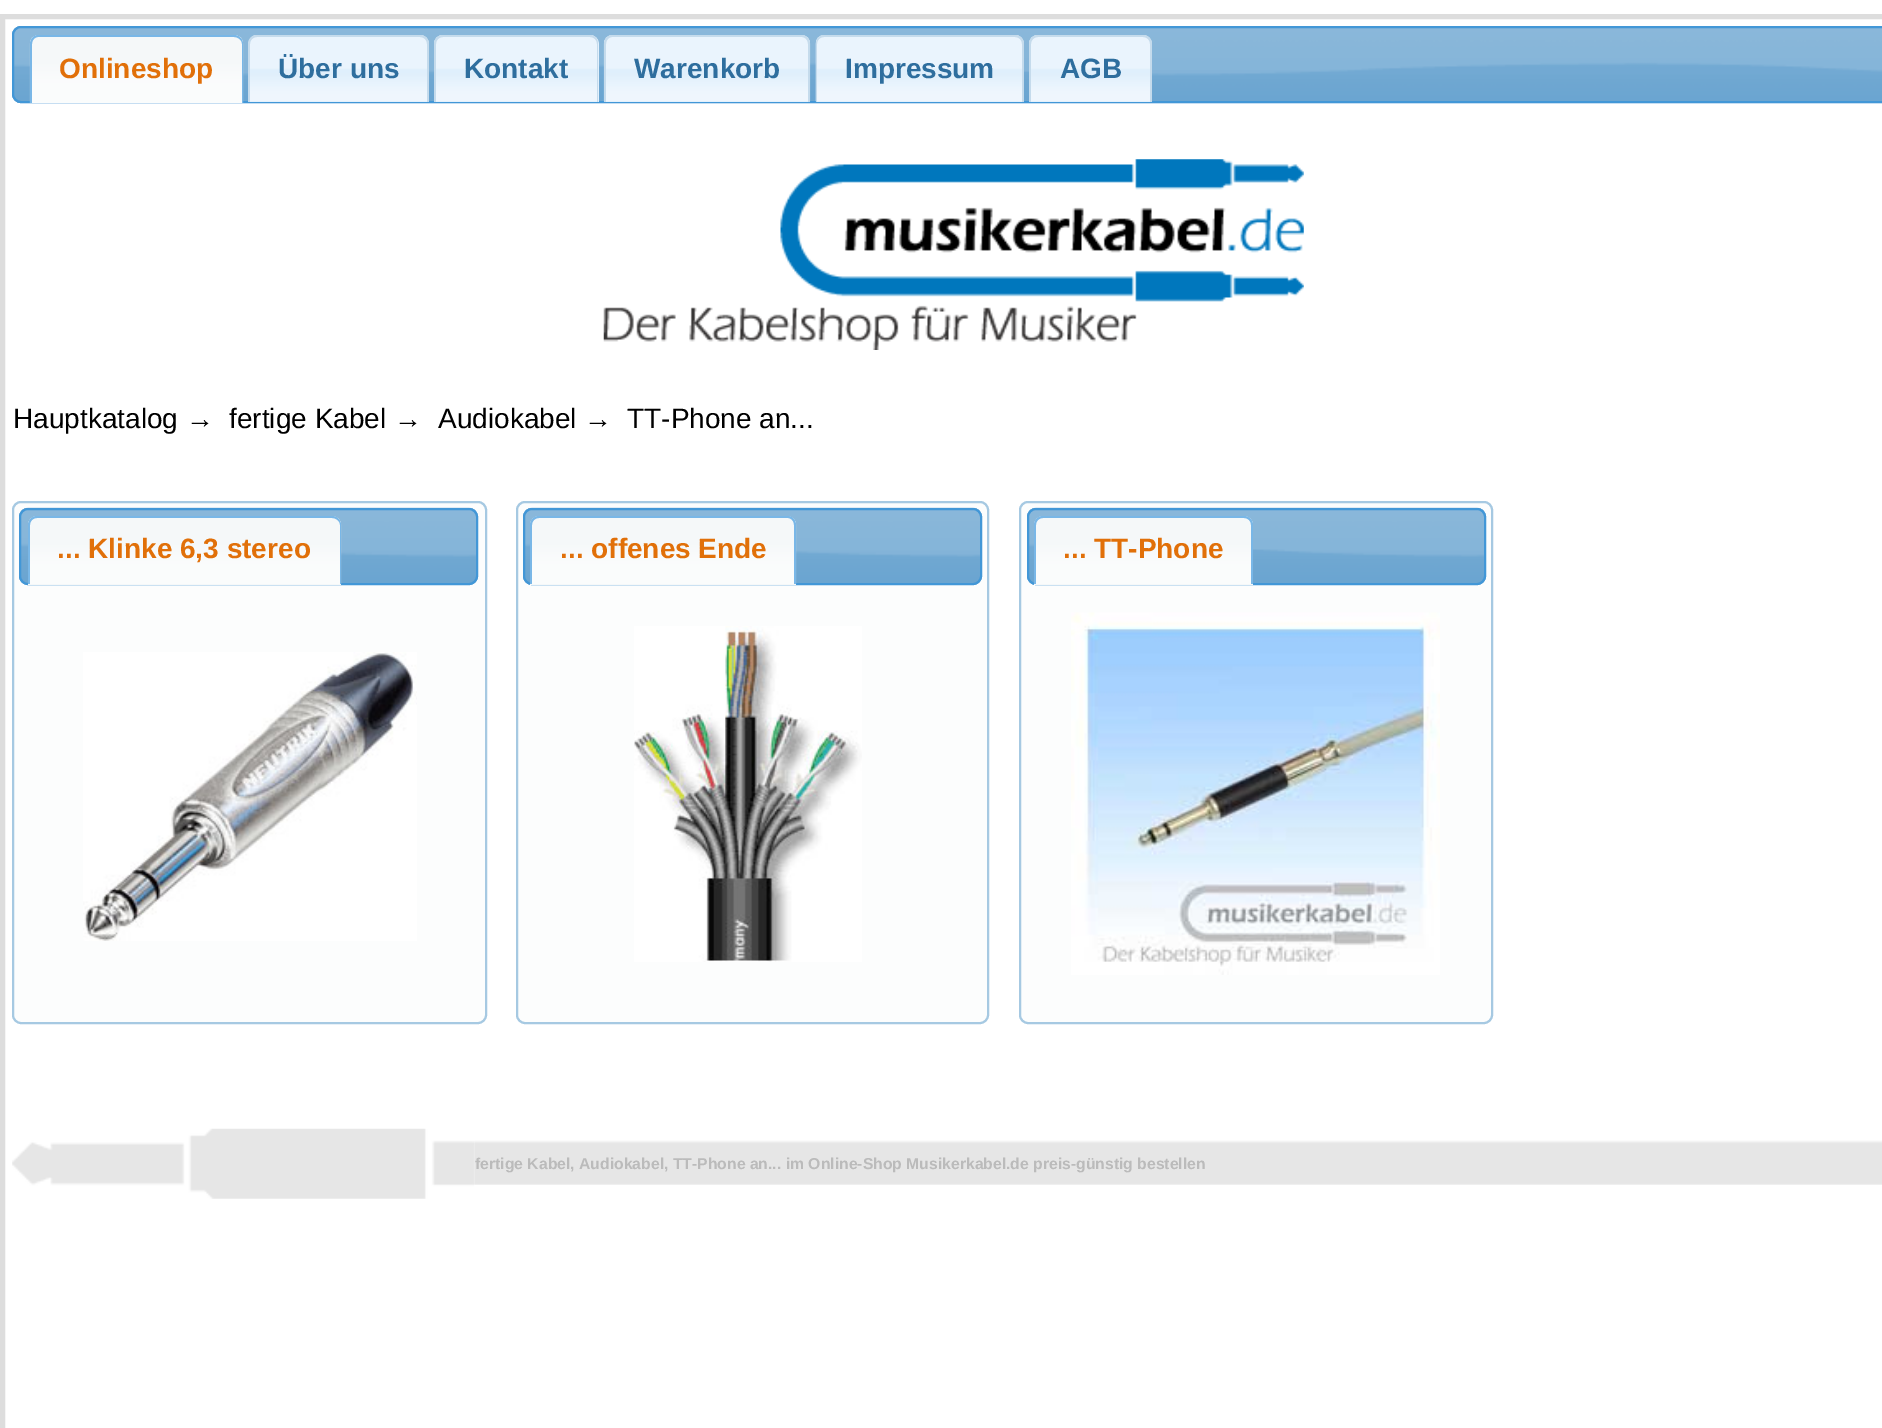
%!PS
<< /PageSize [1882 1428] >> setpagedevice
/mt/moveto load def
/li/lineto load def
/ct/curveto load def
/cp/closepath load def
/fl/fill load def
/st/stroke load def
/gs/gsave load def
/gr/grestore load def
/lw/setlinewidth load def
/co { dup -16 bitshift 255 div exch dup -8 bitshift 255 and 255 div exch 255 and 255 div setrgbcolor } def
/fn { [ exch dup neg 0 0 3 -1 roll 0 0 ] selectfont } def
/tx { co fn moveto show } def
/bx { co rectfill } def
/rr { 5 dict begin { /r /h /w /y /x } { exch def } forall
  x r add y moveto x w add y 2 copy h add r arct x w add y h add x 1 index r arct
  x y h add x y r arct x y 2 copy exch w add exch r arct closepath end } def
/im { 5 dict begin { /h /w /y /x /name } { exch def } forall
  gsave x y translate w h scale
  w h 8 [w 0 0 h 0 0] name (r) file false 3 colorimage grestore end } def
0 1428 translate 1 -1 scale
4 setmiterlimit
0 0 1882 1428 16#FFFFFF bx
16#DDDDDD co
5 lw
2.5 16.5 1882 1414 rectstroke
(media/1.raw) 603 159 701 191 im
(media/2.raw) 12 26 1870 78 im
16#4297D7 co
2 lw
13 27 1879 75 8 rr st
(media/3.raw) 29 35 215 68 im
16#79B7E7 co
38 35 mt 234 35 li 239 35 243 39 243 44 ct 243 103 li 30 103 li 30 44 li 30 39 34 35 38 35 ct cp 38 37 mt 234 37 li 238 37 242 40 242 44 ct 242 103 li 32 103 li 32 44 li 32 40 35 37 38 37 ct cp eofill
16#DFEFFC co
258 35 mt 420 35 li 425 35 429 39 429 44 ct 429 102 li 249 102 li 249 44 li 249 39 253 35 258 35 ct cp fl
(media/4.raw) 248 35 181 67 im
16#C5DBEC co
257 35 mt 420 35 li 425 35 429 39 429 44 ct 429 102 li 248 102 li 248 44 li 248 39 252 35 257 35 ct cp 257 37 mt 420 37 li 424 37 427 40 427 44 ct 427 102 li 250 102 li 250 44 li 250 40 253 37 257 37 ct cp eofill
16#DFEFFC co
443 35 mt 590 35 li 595 35 599 39 599 44 ct 599 102 li 434 102 li 434 44 li 434 39 438 35 443 35 ct cp fl
(media/5.raw) 434 35 165 67 im
16#C5DBEC co
443 35 mt 590 35 li 595 35 598 39 598 44 ct 598 102 li 434 102 li 434 44 li 434 39 438 35 443 35 ct cp 443 37 mt 590 37 li 594 37 597 40 597 44 ct 597 102 li 436 102 li 436 44 li 436 40 439 37 443 37 ct cp eofill
16#DFEFFC co
613 35 mt 801 35 li 806 35 810 39 810 44 ct 810 102 li 604 102 li 604 44 li 604 39 608 35 613 35 ct cp fl
(media/6.raw) 603 35 208 67 im
16#C5DBEC co
612 35 mt 802 35 li 806 35 810 39 810 44 ct 810 102 li 604 102 li 604 44 li 604 39 608 35 612 35 ct cp 612 37 mt 802 37 li 805 37 808 40 808 44 ct 808 102 li 606 102 li 606 44 li 606 40 609 37 612 37 ct cp eofill
16#DFEFFC co
825 35 mt 1015 35 li 1020 35 1024 39 1024 44 ct 1024 102 li 816 102 li 816 44 li 816 39 820 35 825 35 ct cp fl
(media/7.raw) 815 35 209 67 im
16#C5DBEC co
824 35 mt 1015 35 li 1020 35 1024 39 1024 44 ct 1024 102 li 816 102 li 816 44 li 816 39 819 35 824 35 ct cp 824 37 mt 1015 37 li 1019 37 1022 40 1022 44 ct 1022 102 li 817 102 li 817 44 li 817 40 820 37 824 37 ct cp eofill
16#DFEFFC co
1038 35 mt 1143 35 li 1148 35 1152 39 1152 44 ct 1152 102 li 1029 102 li 1029 44 li 1029 39 1033 35 1038 35 ct cp fl
(media/8.raw) 1029 35 123 67 im
16#C5DBEC co
1038 35 mt 1143 35 li 1148 35 1152 39 1152 44 ct 1152 102 li 1029 102 li 1029 44 li 1029 39 1033 35 1038 35 ct cp 1038 37 mt 1143 37 li 1147 37 1150 40 1150 44 ct 1150 102 li 1031 102 li 1031 44 li 1031 40 1034 37 1038 37 ct cp eofill
16#FCFDFD co
13 502 473 521 8 rr gs fl gr
16#A6C9E2 co
st
(media/9.raw) 19 507 459 78 im
16#4297D7 co
20 509 457 75 8 rr st
16#F5F8F9 co
37 516 mt 332 516 li 337 516 341 520 341 525 ct 341 585 li 28 585 li 28 525 li 28 520 32 516 37 516 ct cp fl
(media/10.raw) 28 516 314 68 im
16#79B7E7 co
37 516 mt 332 516 li 337 516 341 520 341 525 ct 341 584 li 28 584 li 28 525 li 28 520 32 516 37 516 ct cp 37 518 mt 332 518 li 336 518 340 521 340 525 ct 340 584 li 30 584 li 30 525 li 30 521 33 518 37 518 ct cp eofill
(media/11.raw) 83 652 334 289 im
16#FCFDFD co
517 502 471 521 8 rr gs fl gr
16#A6C9E2 co
st
(media/9.raw) 523 507 459 78 im
16#4297D7 co
524 509 457 75 8 rr st
16#F5F8F9 co
539 516 mt 787 516 li 792 516 796 520 796 525 ct 796 585 li 530 585 li 530 525 li 530 520 534 516 539 516 ct cp fl
(media/12.raw) 530 516 267 68 im
16#79B7E7 co
539 516 mt 788 516 li 792 516 796 520 796 525 ct 796 584 li 530 584 li 530 525 li 530 520 534 516 539 516 ct cp 539 518 mt 788 518 li 791 518 794 521 794 525 ct 794 584 li 532 584 li 532 525 li 532 521 535 518 539 518 ct cp eofill
(media/13.raw) 634 626 228 336 im
16#FCFDFD co
1020 502 472 521 8 rr gs fl gr
16#A6C9E2 co
st
(media/9.raw) 1027 507 459 78 im
16#4297D7 co
1028 509 457 75 8 rr st
16#F5F8F9 co
1043 516 mt 1244 516 li 1249 516 1253 520 1253 525 ct 1253 585 li 1034 585 li 1034 525 li 1034 520 1038 516 1043 516 ct cp fl
(media/14.raw) 1034 516 219 68 im
16#79B7E7 co
1043 516 mt 1244 516 li 1249 516 1253 520 1253 525 ct 1253 584 li 1034 584 li 1034 525 li 1034 520 1038 516 1043 516 ct cp 1043 518 mt 1244 518 li 1248 518 1251 521 1251 525 ct 1251 584 li 1036 584 li 1036 525 li 1036 521 1039 518 1043 518 ct cp eofill
(media/15.raw) 1071 612 369 363 im
(media/16.raw) 12 1128 463 71 im
(media/17.raw) 474 1140 1408 45 im
(Onlineshop) 59 78 /LiberationSans-Bold 28 16#E17009 tx
(Über uns) 278 78 /LiberationSans-Bold 28 16#2E6E9E tx
(Kontakt) 464 78 /LiberationSans-Bold 28 16#2E6E9E tx
(Warenkorb) 634 78 /LiberationSans-Bold 28 16#2E6E9E tx
(Impressum) 845 78 /LiberationSans-Bold 28 16#2E6E9E tx
(AGB) 1060 78 /LiberationSans-Bold 28 16#2E6E9E tx
(Hauptkatalog →) 13 428 /LiberationSans-Regular 28 16#000000 tx
(fertige Kabel →) 229 428 /LiberationSans-Regular 28 16#000000 tx
(Audiokabel →) 438 428 /LiberationSans-Regular 28 16#000000 tx
(TT-Phone an...) 627 428 /LiberationSans-Regular 28 16#000000 tx
(... Klinke 6,3 stereo) 57 558 /LiberationSans-Bold 28 16#E17009 tx
(... offenes Ende) 560 558 /LiberationSans-Bold 28 16#E17009 tx
(... TT-Phone) 1063 558 /LiberationSans-Bold 28 16#E17009 tx
(fertige Kabel, Audiokabel, TT-Phone an... im Online-Shop Musikerkabel.de preis-günstig bestellen) 475 1169 /LiberationSans-Bold 15.75 16#BBBBBB tx
showpage
